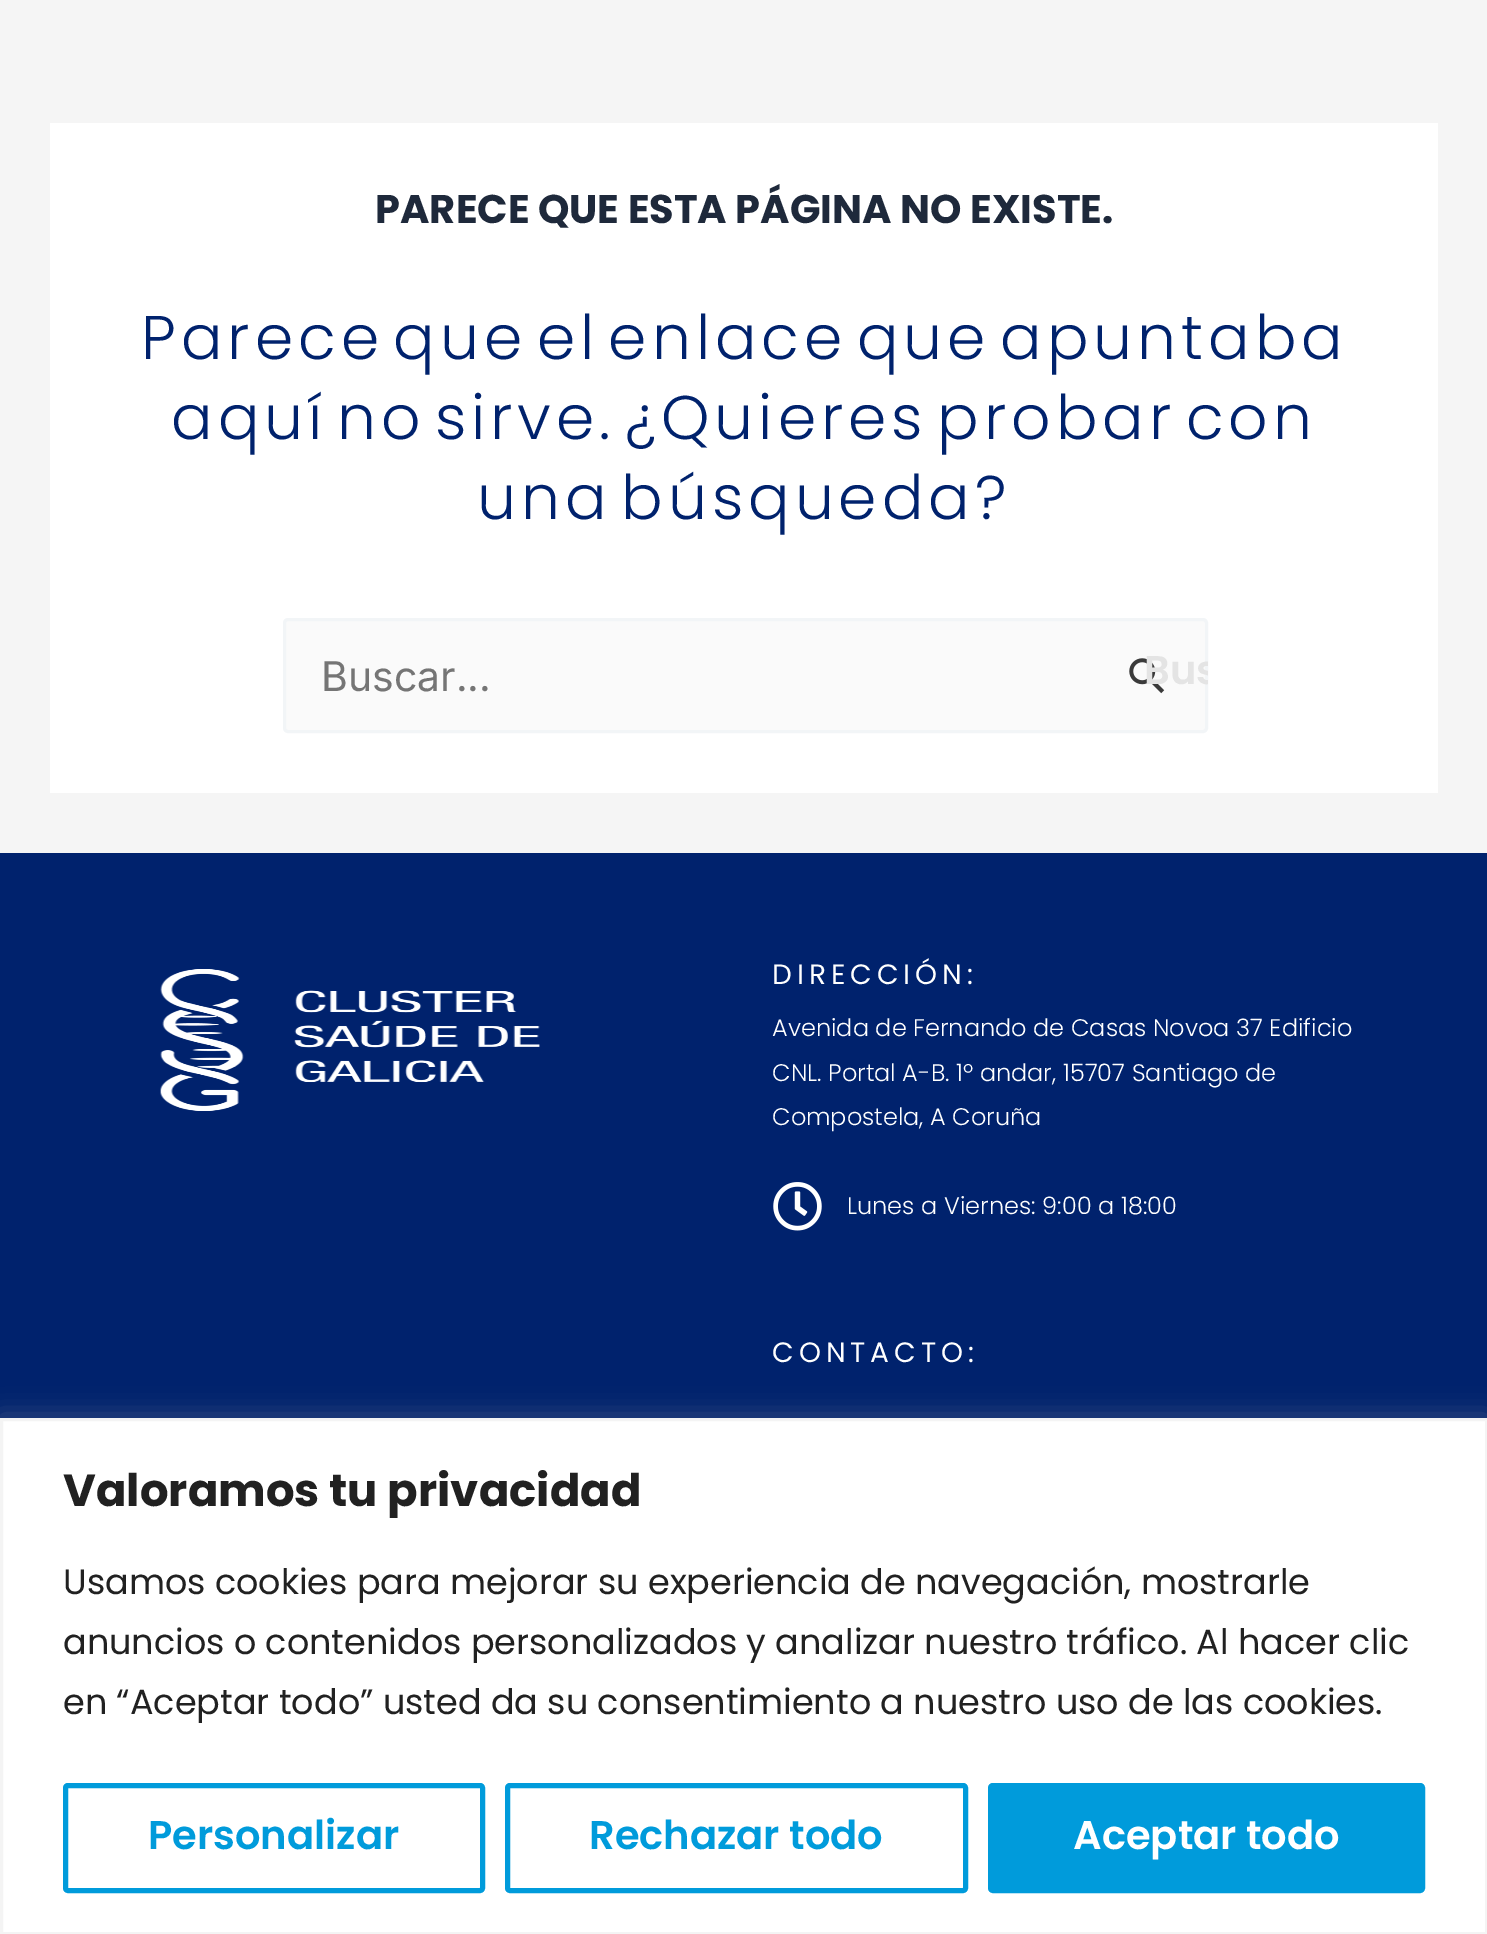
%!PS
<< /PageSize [1487 1934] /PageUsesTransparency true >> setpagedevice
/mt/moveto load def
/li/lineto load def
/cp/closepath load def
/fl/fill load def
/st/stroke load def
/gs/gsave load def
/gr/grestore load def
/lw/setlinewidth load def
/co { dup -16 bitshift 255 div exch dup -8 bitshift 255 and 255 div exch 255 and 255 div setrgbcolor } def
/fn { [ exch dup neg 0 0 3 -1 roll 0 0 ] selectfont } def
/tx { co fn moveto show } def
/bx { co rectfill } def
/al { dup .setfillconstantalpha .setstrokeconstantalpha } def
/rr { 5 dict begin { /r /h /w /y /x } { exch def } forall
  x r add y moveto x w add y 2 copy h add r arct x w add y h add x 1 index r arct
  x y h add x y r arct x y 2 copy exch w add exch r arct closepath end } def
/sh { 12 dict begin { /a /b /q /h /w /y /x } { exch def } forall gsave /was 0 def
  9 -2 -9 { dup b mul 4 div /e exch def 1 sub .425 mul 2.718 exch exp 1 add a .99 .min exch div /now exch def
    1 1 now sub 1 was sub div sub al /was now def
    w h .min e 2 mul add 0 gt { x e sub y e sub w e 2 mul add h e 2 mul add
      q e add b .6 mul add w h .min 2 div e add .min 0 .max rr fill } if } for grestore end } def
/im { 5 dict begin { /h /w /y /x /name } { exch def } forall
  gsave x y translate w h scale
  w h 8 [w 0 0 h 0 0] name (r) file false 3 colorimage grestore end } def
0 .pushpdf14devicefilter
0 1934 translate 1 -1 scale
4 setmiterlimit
0 0 1487 1934 16#F5F5F5 bx
50 123 1388 670 16#FFFFFF bx
16#FAFAFA co
284.5 619.5 922 112 3.5 rr gs fl gr
16#F2F5F7 co
3 lw
st
(media/1.raw) 1129 658 36 36 im
0 853 1487 565 16#00226D bx
(media/2.raw) 160 969 380 142 im
(media/3.raw) 773 1182 49 49 im
16#ACABAB co
0 1415 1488 518 0 12.5 .3 sh
16#FFFFFF co
1.5 1419.5 mt 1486.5 1419.5 li 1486.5 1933.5 li 1.5 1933.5 li cp gs fl gr
16#F4F4F4 co
st
16#009BDB co
5 lw
65.5 1785.5 417 105 2.5 rr st
507.5 1785.5 458 105 2.5 rr st
990.5 1785.5 432 105 2.5 rr gs fl gr
st
(PARECE QUE ESTA PÁGINA NO EXISTE.) 375 223 /Poppins-Bold 40 16#1E293B tx
/Poppins-Light 61.6 fn
16#00226D co
141 359 mt -12.5 0 32 5 0 (Parece que el enlace que apuntaba) awidthshow
171 439 mt -12.5 0 32 5 0 (aquí no sirve. ¿Quieres probar con) awidthshow
477 519 mt -12.5 0 32 5 0 (una búsqueda?) awidthshow
(Buscar...) 321 691 /Inter-Regular 41 16#757575 tx
gs
1095 618 113 105 5 rr clip newpath
(Bus) 1144 684 /Poppins-SemiBold 40 16#E4E4E4 tx
gr
/Poppins-Regular 28 fn
16#FFFFFF co
772 984 mt 5 0 (DIRECCIÓN:) ashow
(Avenida de Fernando de Casas Novoa 37 Edificio) 772 1036 /Poppins-Light 24 16#FFFFFF tx
(CNL. Portal A-B. 1º andar, 15707 Santiago de) 772 1081 /Poppins-Light 24 16#FFFFFF tx
(Compostela, A Coruña) 772 1125 /Poppins-Light 24 16#FFFFFF tx
(Lunes a Viernes: 9:00 a 18:00) 847 1214 /Poppins-Light 24 16#FFFFFF tx
/Poppins-Regular 28 fn
772 1362 mt 5 0 (CONTACTO:) ashow
(Valoramos tu privacidad) 63 1506 /Poppins-Bold 45 16#212121 tx
(Usamos cookies para mejorar su experiencia de navegación, mostrarle) 63 1594 /Poppins-Regular 35 16#212121 tx
(anuncios o contenidos personalizados y analizar nuestro tráfico. Al hacer clic) 63 1654 /Poppins-Regular 35 16#212121 tx
(en “Aceptar todo” usted da su consentimiento a nuestro uso de las cookies.) 63 1714 /Poppins-Regular 35 16#212121 tx
(Personalizar) 148 1849 /Poppins-SemiBold 40 16#009BDB tx
(Rechazar todo) 589 1849 /Poppins-SemiBold 40 16#009BDB tx
(Aceptar todo) 1073 1849 /Poppins-SemiBold 40 16#FFFFFF tx
.poppdf14devicefilter showpage
